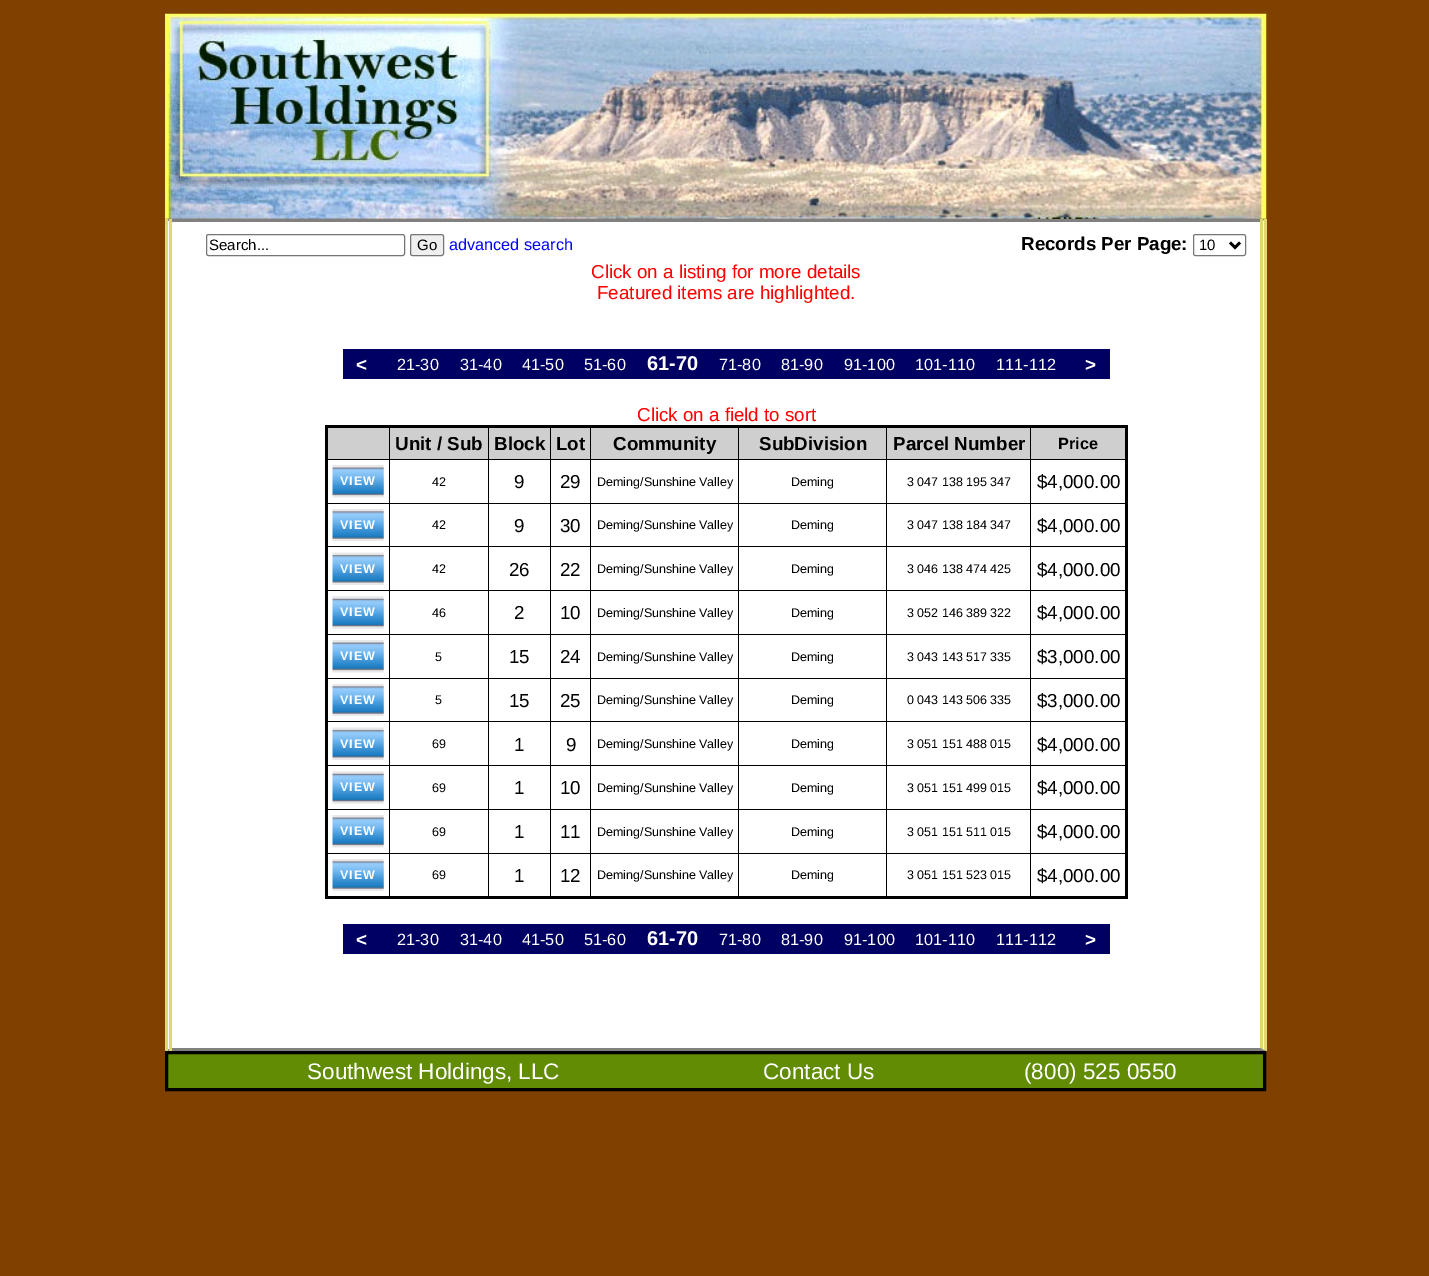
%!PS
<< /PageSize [1429 1276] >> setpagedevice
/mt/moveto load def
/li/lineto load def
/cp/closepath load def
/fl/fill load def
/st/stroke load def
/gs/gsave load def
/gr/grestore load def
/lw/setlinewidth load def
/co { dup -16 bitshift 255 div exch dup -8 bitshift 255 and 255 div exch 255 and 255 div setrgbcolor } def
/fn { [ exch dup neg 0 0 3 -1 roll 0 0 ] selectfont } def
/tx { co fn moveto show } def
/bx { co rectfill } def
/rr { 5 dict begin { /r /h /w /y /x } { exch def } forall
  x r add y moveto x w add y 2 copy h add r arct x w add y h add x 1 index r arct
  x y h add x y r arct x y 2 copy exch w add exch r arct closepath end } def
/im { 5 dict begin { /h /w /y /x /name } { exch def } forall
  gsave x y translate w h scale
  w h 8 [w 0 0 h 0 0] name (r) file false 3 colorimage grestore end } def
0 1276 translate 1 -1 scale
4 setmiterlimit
0 0 1429 1276 16#804000 bx
(media/1.raw) 165 13 1102 206 im
168 220 1096 830 16#FFFFFF bx
16#808080 co
165 219 mt 1266 219 li 1260 222 li 171 222 li cp fl
1260 219 3 832 16#DFD86E bx
1264 219 3 832 16#DFD86E bx
16#808080 co
1266 1051 mt 165 1051 li 171 1048 li 1260 1048 li cp fl
165 219 3 832 16#DFD86E bx
169 219 3 832 16#DFD86E bx
16#767676 co
206.5 234.5 198 21 2 rr st
16#EFEFEF co
410.5 234.5 33 21 2 rr gs fl gr
16#767676 co
st
1193.5 234.5 52 21 2 rr st
16#000000 co
2.5 lw
1230 242.5 mt 1235 247.5 li 1240 242.5 li st
343 349 767 30 16#000062 bx
1030 459 96 1 16#000000 bx
1030 503 96 1 16#000000 bx
1030 546 96 1 16#000000 bx
1030 590 96 1 16#000000 bx
1030 634 96 1 16#000000 bx
1030 678 96 1 16#000000 bx
1030 721 96 1 16#000000 bx
1030 765 96 1 16#000000 bx
1030 809 96 1 16#000000 bx
1030 853 96 1 16#000000 bx
1030 853 1 46 16#000000 bx
886 853 145 1 16#000000 bx
1030 809 1 45 16#000000 bx
886 809 145 1 16#000000 bx
1030 765 1 45 16#000000 bx
886 765 145 1 16#000000 bx
1030 721 1 45 16#000000 bx
886 721 145 1 16#000000 bx
1030 678 1 45 16#000000 bx
886 678 145 1 16#000000 bx
1030 634 1 45 16#000000 bx
886 634 145 1 16#000000 bx
1030 590 1 45 16#000000 bx
886 590 145 1 16#000000 bx
1030 546 1 45 16#000000 bx
886 546 145 1 16#000000 bx
1030 503 1 45 16#000000 bx
886 503 145 1 16#000000 bx
1030 459 1 45 16#000000 bx
886 459 145 1 16#000000 bx
886 853 1 46 16#000000 bx
738 853 150 1 16#000000 bx
886 809 1 45 16#000000 bx
738 809 150 1 16#000000 bx
886 765 1 45 16#000000 bx
738 765 150 1 16#000000 bx
886 721 1 45 16#000000 bx
738 721 150 1 16#000000 bx
886 678 1 45 16#000000 bx
738 678 150 1 16#000000 bx
886 634 1 45 16#000000 bx
738 634 150 1 16#000000 bx
886 590 1 45 16#000000 bx
738 590 150 1 16#000000 bx
886 546 1 45 16#000000 bx
738 546 150 1 16#000000 bx
886 503 1 45 16#000000 bx
738 503 150 1 16#000000 bx
886 459 1 45 16#000000 bx
738 459 150 1 16#000000 bx
738 853 1 46 16#000000 bx
590 853 149 1 16#000000 bx
738 809 1 45 16#000000 bx
590 809 149 1 16#000000 bx
738 765 1 45 16#000000 bx
590 765 149 1 16#000000 bx
738 721 1 45 16#000000 bx
590 721 149 1 16#000000 bx
738 678 1 45 16#000000 bx
590 678 149 1 16#000000 bx
738 634 1 45 16#000000 bx
590 634 149 1 16#000000 bx
738 590 1 45 16#000000 bx
590 590 149 1 16#000000 bx
738 546 1 45 16#000000 bx
590 546 149 1 16#000000 bx
738 503 1 45 16#000000 bx
590 503 149 1 16#000000 bx
738 459 1 45 16#000000 bx
590 459 149 1 16#000000 bx
590 853 1 46 16#000000 bx
550 853 41 1 16#000000 bx
590 809 1 45 16#000000 bx
550 809 41 1 16#000000 bx
590 765 1 45 16#000000 bx
550 765 41 1 16#000000 bx
590 721 1 45 16#000000 bx
550 721 41 1 16#000000 bx
590 678 1 45 16#000000 bx
550 678 41 1 16#000000 bx
590 634 1 45 16#000000 bx
550 634 41 1 16#000000 bx
590 590 1 45 16#000000 bx
550 590 41 1 16#000000 bx
590 546 1 45 16#000000 bx
550 546 41 1 16#000000 bx
590 503 1 45 16#000000 bx
550 503 41 1 16#000000 bx
590 459 1 45 16#000000 bx
550 459 41 1 16#000000 bx
550 853 1 46 16#000000 bx
488 853 63 1 16#000000 bx
550 809 1 45 16#000000 bx
488 809 63 1 16#000000 bx
550 765 1 45 16#000000 bx
488 765 63 1 16#000000 bx
550 721 1 45 16#000000 bx
488 721 63 1 16#000000 bx
550 678 1 45 16#000000 bx
488 678 63 1 16#000000 bx
550 634 1 45 16#000000 bx
488 634 63 1 16#000000 bx
550 590 1 45 16#000000 bx
488 590 63 1 16#000000 bx
550 546 1 45 16#000000 bx
488 546 63 1 16#000000 bx
550 503 1 45 16#000000 bx
488 503 63 1 16#000000 bx
550 459 1 45 16#000000 bx
488 459 63 1 16#000000 bx
488 853 1 46 16#000000 bx
389 853 100 1 16#000000 bx
488 809 1 45 16#000000 bx
389 809 100 1 16#000000 bx
488 765 1 45 16#000000 bx
389 765 100 1 16#000000 bx
488 721 1 45 16#000000 bx
389 721 100 1 16#000000 bx
488 678 1 45 16#000000 bx
389 678 100 1 16#000000 bx
488 634 1 45 16#000000 bx
389 634 100 1 16#000000 bx
488 590 1 45 16#000000 bx
389 590 100 1 16#000000 bx
488 546 1 45 16#000000 bx
389 546 100 1 16#000000 bx
488 503 1 45 16#000000 bx
389 503 100 1 16#000000 bx
488 459 1 45 16#000000 bx
389 459 100 1 16#000000 bx
389 853 1 46 16#000000 bx
326 853 64 1 16#000000 bx
389 809 1 45 16#000000 bx
326 809 64 1 16#000000 bx
389 765 1 45 16#000000 bx
326 765 64 1 16#000000 bx
389 721 1 45 16#000000 bx
326 721 64 1 16#000000 bx
389 678 1 45 16#000000 bx
326 678 64 1 16#000000 bx
389 634 1 45 16#000000 bx
326 634 64 1 16#000000 bx
389 590 1 45 16#000000 bx
326 590 64 1 16#000000 bx
389 546 1 45 16#000000 bx
326 546 64 1 16#000000 bx
389 503 1 45 16#000000 bx
326 503 64 1 16#000000 bx
389 459 1 45 16#000000 bx
326 459 64 1 16#000000 bx
389 426 1 34 16#000000 bx
488 426 1 34 16#000000 bx
550 426 1 34 16#000000 bx
590 426 1 34 16#000000 bx
738 426 1 34 16#000000 bx
739 428 291 31 16#CFCFCF bx
886 426 1 34 16#000000 bx
1030 426 1 34 16#000000 bx
325 425 803 3 16#000000 bx
1125 425 3 474 16#000000 bx
325 896 803 3 16#000000 bx
325 425 3 474 16#000000 bx
328 428 61 31 16#CFCFCF bx
390 428 98 31 16#CFCFCF bx
489 428 61 31 16#CFCFCF bx
551 428 39 31 16#CFCFCF bx
591 428 147 31 16#CFCFCF bx
1031 428 94 31 16#CFCFCF bx
(media/2.raw) 332 465 52 33 im
(media/3.raw) 332 509 52 32 im
(media/4.raw) 332 552 52 33 im
(media/5.raw) 332 596 52 33 im
(media/2.raw) 332 640 52 33 im
(media/3.raw) 332 684 52 32 im
(media/4.raw) 332 727 52 33 im
(media/5.raw) 332 771 52 33 im
(media/2.raw) 332 815 52 33 im
(media/3.raw) 332 859 52 32 im
343 924 767 30 16#000062 bx
16#618C03 co
166.5 1052.5 mt 1264.5 1052.5 li 1264.5 1089.5 li 166.5 1089.5 li cp gs fl gr
16#000000 co
3 lw
st
(Search...) 209 250 /LiberationSans-Regular 15 16#000000 tx
(Go) 417 250 /LiberationSans-Regular 15 16#000000 tx
(advanced search) 449 250 /LiberationSans-Regular 16.25 16#0000FF tx
(Records Per Page:) 1021 250 /LiberationSans-Bold 18.75 16#000000 tx
(10) 1199 250 /LiberationSans-Regular 15 16#000000 tx
(Click on a listing for more details) 591 278 /LiberationSans-Regular 18.75 16#FF0000 tx
(Featured items are highlighted.) 597 299 /LiberationSans-Regular 18.75 16#FF0000 tx
(<) 356 371 /LiberationSans-Bold 18.75 16#FFFFFF tx
(21-30) 397 370 /LiberationSans-Regular 16.25 16#FFFFFF tx
(31-40) 460 370 /LiberationSans-Regular 16.25 16#FFFFFF tx
(41-50) 522 370 /LiberationSans-Regular 16.25 16#FFFFFF tx
(51-60) 584 370 /LiberationSans-Regular 16.25 16#FFFFFF tx
(61-70) 647 370 /LiberationSans-Bold 20 16#FFFFFF tx
(71-80) 719 370 /LiberationSans-Regular 16.25 16#FFFFFF tx
(81-90) 781 370 /LiberationSans-Regular 16.25 16#FFFFFF tx
(91-100) 844 370 /LiberationSans-Regular 16.25 16#FFFFFF tx
(101-110) 915 370 /LiberationSans-Regular 16.25 16#FFFFFF tx
(111-112) 996 370 /LiberationSans-Regular 16.25 16#FFFFFF tx
(>) 1085 371 /LiberationSans-Bold 18.75 16#FFFFFF tx
(Click on a field to sort) 637 421 /LiberationSans-Regular 18.75 16#FF0000 tx
(Unit / Sub) 395 450 /LiberationSans-Bold 18.75 16#000000 tx
(Block) 494 450 /LiberationSans-Bold 18.75 16#000000 tx
(Lot) 556 450 /LiberationSans-Bold 18.75 16#000000 tx
(Community) 613 450 /LiberationSans-Bold 18.75 16#000000 tx
(SubDivision) 759 450 /LiberationSans-Bold 18.75 16#000000 tx
(Parcel Number) 893 450 /LiberationSans-Bold 18.75 16#000000 tx
(Price) 1058 449 /LiberationSans-Bold 16.25 16#000000 tx
/LiberationSans-Bold 12.5 fn
16#FFFFFF co
340 485 mt 1 0 (VIEW) ashow
(42) 432 486 /LiberationSans-Regular 12.5 16#000000 tx
(9) 514 488 /LiberationSans-Regular 18.75 16#000000 tx
(29) 560 488 /LiberationSans-Regular 18.75 16#000000 tx
(Deming/Sunshine Valley) 597 486 /LiberationSans-Regular 12.5 16#000000 tx
(Deming) 791 486 /LiberationSans-Regular 12.5 16#000000 tx
(3 047 138 195 347) 907 486 /LiberationSans-Regular 12.5 16#000000 tx
($4,000.00) 1037 488 /LiberationSans-Regular 18.75 16#000000 tx
/LiberationSans-Bold 12.5 fn
16#FFFFFF co
340 529 mt 1 0 (VIEW) ashow
(42) 432 529 /LiberationSans-Regular 12.5 16#000000 tx
(9) 514 532 /LiberationSans-Regular 18.75 16#000000 tx
(30) 560 532 /LiberationSans-Regular 18.75 16#000000 tx
(Deming/Sunshine Valley) 597 529 /LiberationSans-Regular 12.5 16#000000 tx
(Deming) 791 529 /LiberationSans-Regular 12.5 16#000000 tx
(3 047 138 184 347) 907 529 /LiberationSans-Regular 12.5 16#000000 tx
($4,000.00) 1037 532 /LiberationSans-Regular 18.75 16#000000 tx
/LiberationSans-Bold 12.5 fn
16#FFFFFF co
340 573 mt 1 0 (VIEW) ashow
(42) 432 573 /LiberationSans-Regular 12.5 16#000000 tx
(26) 509 576 /LiberationSans-Regular 18.75 16#000000 tx
(22) 560 576 /LiberationSans-Regular 18.75 16#000000 tx
(Deming/Sunshine Valley) 597 573 /LiberationSans-Regular 12.5 16#000000 tx
(Deming) 791 573 /LiberationSans-Regular 12.5 16#000000 tx
(3 046 138 474 425) 907 573 /LiberationSans-Regular 12.5 16#000000 tx
($4,000.00) 1037 576 /LiberationSans-Regular 18.75 16#000000 tx
/LiberationSans-Bold 12.5 fn
16#FFFFFF co
340 616 mt 1 0 (VIEW) ashow
(46) 432 617 /LiberationSans-Regular 12.5 16#000000 tx
(2) 514 619 /LiberationSans-Regular 18.75 16#000000 tx
(10) 560 619 /LiberationSans-Regular 18.75 16#000000 tx
(Deming/Sunshine Valley) 597 617 /LiberationSans-Regular 12.5 16#000000 tx
(Deming) 791 617 /LiberationSans-Regular 12.5 16#000000 tx
(3 052 146 389 322) 907 617 /LiberationSans-Regular 12.5 16#000000 tx
($4,000.00) 1037 619 /LiberationSans-Regular 18.75 16#000000 tx
/LiberationSans-Bold 12.5 fn
16#FFFFFF co
340 660 mt 1 0 (VIEW) ashow
(5) 435 661 /LiberationSans-Regular 12.5 16#000000 tx
(15) 509 663 /LiberationSans-Regular 18.75 16#000000 tx
(24) 560 663 /LiberationSans-Regular 18.75 16#000000 tx
(Deming/Sunshine Valley) 597 661 /LiberationSans-Regular 12.5 16#000000 tx
(Deming) 791 661 /LiberationSans-Regular 12.5 16#000000 tx
(3 043 143 517 335) 907 661 /LiberationSans-Regular 12.5 16#000000 tx
($3,000.00) 1037 663 /LiberationSans-Regular 18.75 16#000000 tx
/LiberationSans-Bold 12.5 fn
16#FFFFFF co
340 704 mt 1 0 (VIEW) ashow
(5) 435 704 /LiberationSans-Regular 12.5 16#000000 tx
(15) 509 707 /LiberationSans-Regular 18.75 16#000000 tx
(25) 560 707 /LiberationSans-Regular 18.75 16#000000 tx
(Deming/Sunshine Valley) 597 704 /LiberationSans-Regular 12.5 16#000000 tx
(Deming) 791 704 /LiberationSans-Regular 12.5 16#000000 tx
(0 043 143 506 335) 907 704 /LiberationSans-Regular 12.5 16#000000 tx
($3,000.00) 1037 707 /LiberationSans-Regular 18.75 16#000000 tx
/LiberationSans-Bold 12.5 fn
16#FFFFFF co
340 748 mt 1 0 (VIEW) ashow
(69) 432 748 /LiberationSans-Regular 12.5 16#000000 tx
(1) 514 751 /LiberationSans-Regular 18.75 16#000000 tx
(9) 566 751 /LiberationSans-Regular 18.75 16#000000 tx
(Deming/Sunshine Valley) 597 748 /LiberationSans-Regular 12.5 16#000000 tx
(Deming) 791 748 /LiberationSans-Regular 12.5 16#000000 tx
(3 051 151 488 015) 907 748 /LiberationSans-Regular 12.5 16#000000 tx
($4,000.00) 1037 751 /LiberationSans-Regular 18.75 16#000000 tx
/LiberationSans-Bold 12.5 fn
16#FFFFFF co
340 791 mt 1 0 (VIEW) ashow
(69) 432 792 /LiberationSans-Regular 12.5 16#000000 tx
(1) 514 794 /LiberationSans-Regular 18.75 16#000000 tx
(10) 560 794 /LiberationSans-Regular 18.75 16#000000 tx
(Deming/Sunshine Valley) 597 792 /LiberationSans-Regular 12.5 16#000000 tx
(Deming) 791 792 /LiberationSans-Regular 12.5 16#000000 tx
(3 051 151 499 015) 907 792 /LiberationSans-Regular 12.5 16#000000 tx
($4,000.00) 1037 794 /LiberationSans-Regular 18.75 16#000000 tx
/LiberationSans-Bold 12.5 fn
16#FFFFFF co
340 835 mt 1 0 (VIEW) ashow
(69) 432 836 /LiberationSans-Regular 12.5 16#000000 tx
(1) 514 838 /LiberationSans-Regular 18.75 16#000000 tx
(11) 560 838 /LiberationSans-Regular 18.75 16#000000 tx
(Deming/Sunshine Valley) 597 836 /LiberationSans-Regular 12.5 16#000000 tx
(Deming) 791 836 /LiberationSans-Regular 12.5 16#000000 tx
(3 051 151 511 015) 907 836 /LiberationSans-Regular 12.5 16#000000 tx
($4,000.00) 1037 838 /LiberationSans-Regular 18.75 16#000000 tx
/LiberationSans-Bold 12.5 fn
16#FFFFFF co
340 879 mt 1 0 (VIEW) ashow
(69) 432 879 /LiberationSans-Regular 12.5 16#000000 tx
(1) 514 882 /LiberationSans-Regular 18.75 16#000000 tx
(12) 560 882 /LiberationSans-Regular 18.75 16#000000 tx
(Deming/Sunshine Valley) 597 879 /LiberationSans-Regular 12.5 16#000000 tx
(Deming) 791 879 /LiberationSans-Regular 12.5 16#000000 tx
(3 051 151 523 015) 907 879 /LiberationSans-Regular 12.5 16#000000 tx
($4,000.00) 1037 882 /LiberationSans-Regular 18.75 16#000000 tx
(<) 356 946 /LiberationSans-Bold 18.75 16#FFFFFF tx
(21-30) 397 945 /LiberationSans-Regular 16.25 16#FFFFFF tx
(31-40) 460 945 /LiberationSans-Regular 16.25 16#FFFFFF tx
(41-50) 522 945 /LiberationSans-Regular 16.25 16#FFFFFF tx
(51-60) 584 945 /LiberationSans-Regular 16.25 16#FFFFFF tx
(61-70) 647 945 /LiberationSans-Bold 20 16#FFFFFF tx
(71-80) 719 945 /LiberationSans-Regular 16.25 16#FFFFFF tx
(81-90) 781 945 /LiberationSans-Regular 16.25 16#FFFFFF tx
(91-100) 844 945 /LiberationSans-Regular 16.25 16#FFFFFF tx
(101-110) 915 945 /LiberationSans-Regular 16.25 16#FFFFFF tx
(111-112) 996 945 /LiberationSans-Regular 16.25 16#FFFFFF tx
(>) 1085 946 /LiberationSans-Bold 18.75 16#FFFFFF tx
(Southwest Holdings, LLC) 307 1079 /LiberationSans-Regular 22.5 16#FFFFFF tx
(Contact Us) 763 1079 /LiberationSans-Regular 22.5 16#FFFFFF tx
(\(800\) 525 0550) 1024 1079 /LiberationSans-Regular 22.5 16#FFFFFF tx
showpage
